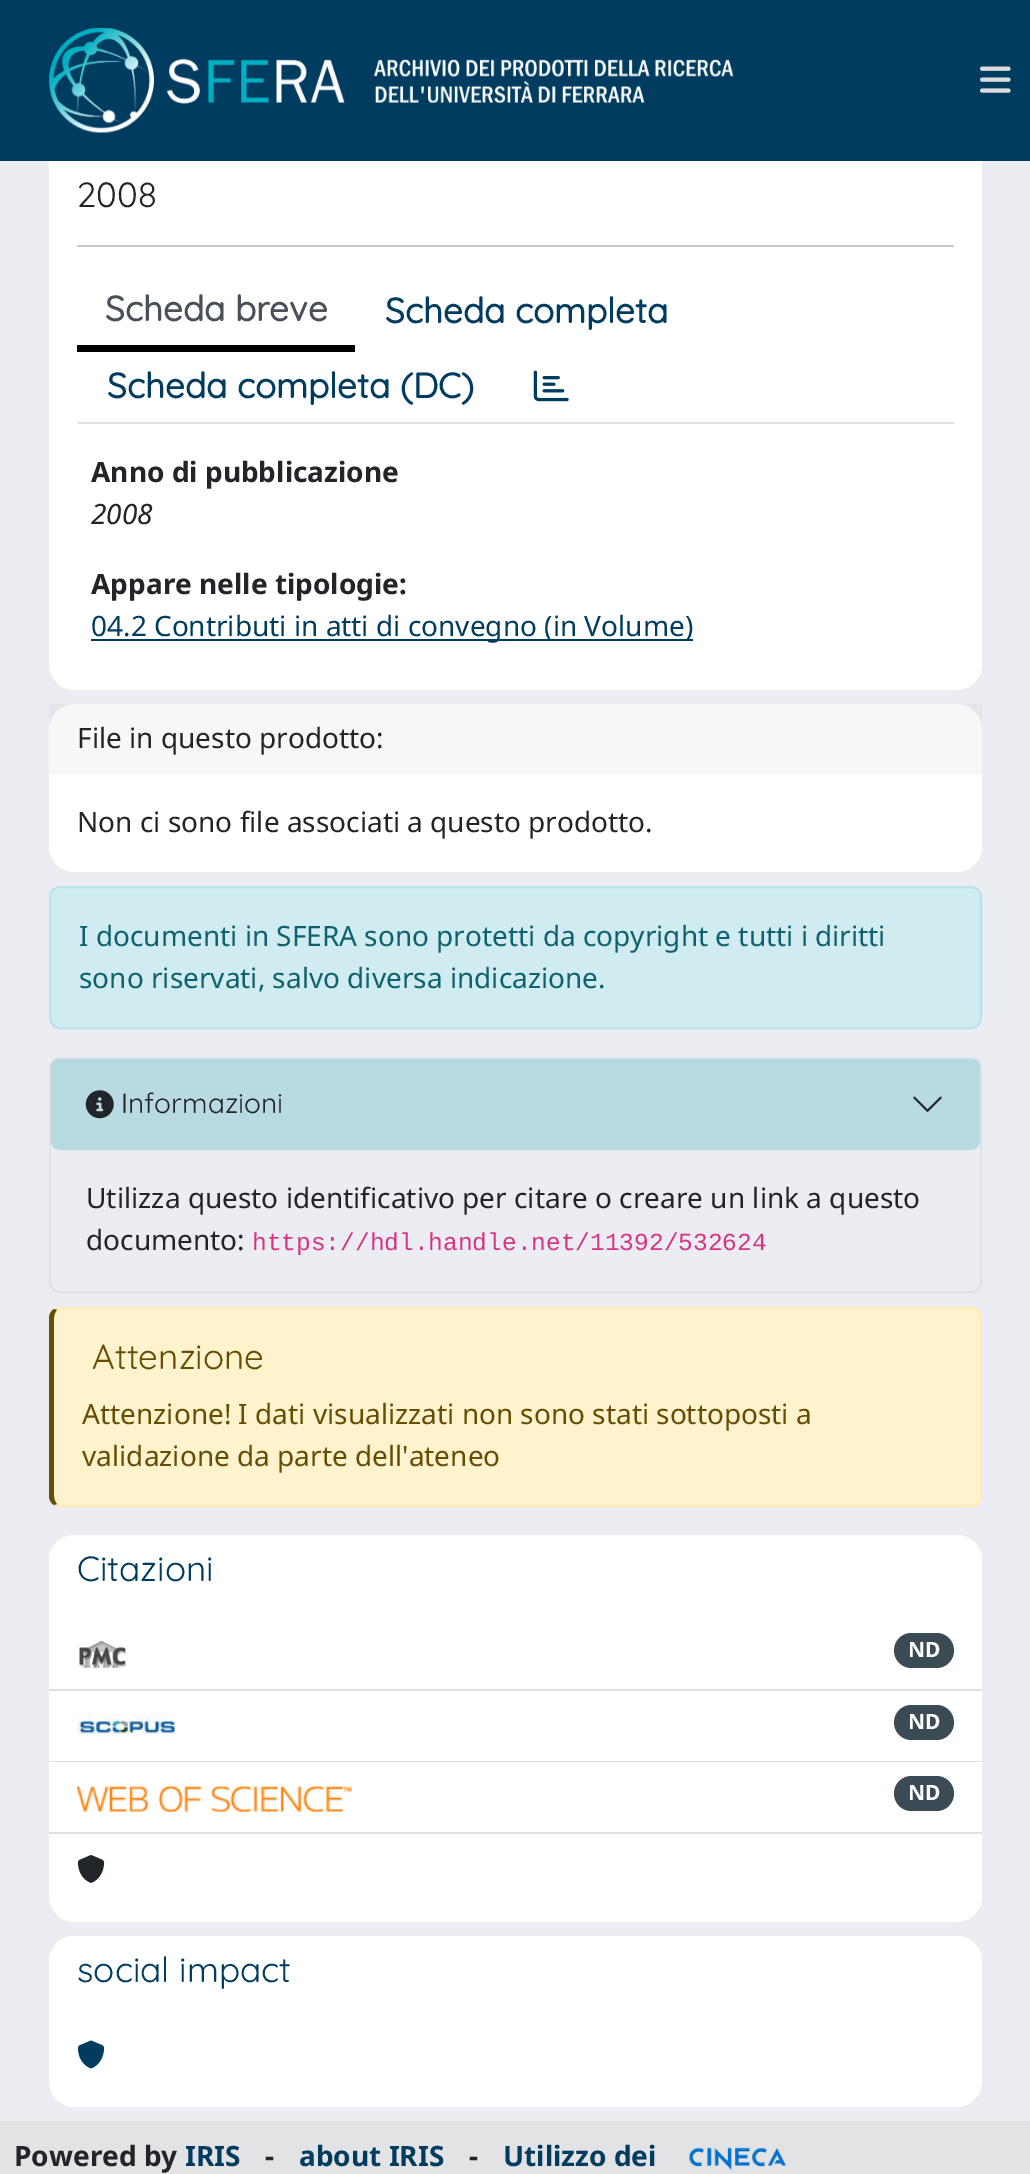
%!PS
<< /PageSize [1030 2174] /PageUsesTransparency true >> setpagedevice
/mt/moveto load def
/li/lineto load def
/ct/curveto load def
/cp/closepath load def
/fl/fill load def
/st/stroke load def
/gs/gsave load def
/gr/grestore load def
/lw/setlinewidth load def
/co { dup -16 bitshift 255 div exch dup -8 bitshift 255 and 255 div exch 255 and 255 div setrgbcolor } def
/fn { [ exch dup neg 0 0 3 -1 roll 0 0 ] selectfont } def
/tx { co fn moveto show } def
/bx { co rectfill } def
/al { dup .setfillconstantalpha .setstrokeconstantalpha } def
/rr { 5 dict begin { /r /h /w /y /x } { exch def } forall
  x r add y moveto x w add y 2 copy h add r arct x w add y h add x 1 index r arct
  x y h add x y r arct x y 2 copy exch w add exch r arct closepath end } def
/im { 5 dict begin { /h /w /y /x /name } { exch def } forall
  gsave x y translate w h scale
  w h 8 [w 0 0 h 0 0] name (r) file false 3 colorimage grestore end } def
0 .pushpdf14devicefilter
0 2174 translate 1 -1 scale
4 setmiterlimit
0 0 1030 2174 16#ECEDF2 bx
16#FFFFFF co
49 -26 933 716 26 rr fl
0 0 1030 161 16#003C5F bx
(media/1.raw) 49 28 685 105 im
(media/2.raw) 980 66 31 27 im
77 245 877 2 16#C8C9CA bx
77 422 877 2 16#DEE2E6 bx
77 345 278 7 16#000000 bx
(media/3.raw) 533 370 36 32 im
91 639 602 2 16#003C5F bx
16#FFFFFF co
49 704 933 168 26 rr fl
0.03 al
49 704 933 70 16#000000 bx
1 al
16#D1ECF1 co
50 887 931 141 10 rr gs fl gr
16#B9E3EA co
2 lw
st
16#DEE2E6 co
50 1058 931 234 10 rr st
0.25 al
16#17A2B8 co
51 1059 929 91 9 rr fl
1 al
(media/4.raw) 85 1090 29 29 im
(media/5.raw) 913 1096 29 16 im
16#FFF3CD co
60 1309 mt 971 1309 li 976 1309 980 1313 980 1318 ct 980 1496 li 980 1501 976 1505 971 1505 ct 60 1505 li 57 1505 54 1501 54 1496 ct 54 1318 li 54 1313 57 1309 60 1309 ct cp fl
16#FFECB5 co
60 1309 mt 57 1310 li 54 1309 li 58 1307 li 973 1307 li 975 1308 977 1309 979 1310 ct 977 1312 li 976 1310 974 1309 971 1309 ct cp fl
982 1498 mt 981 1500 980 1502 979 1504 ct 977 1502 li 979 1501 980 1498 980 1496 ct 980 1318 li 980 1316 979 1313 977 1312 ct 979 1310 li 980 1312 981 1314 982 1316 ct cp fl
58 1507 mt 54 1505 li 57 1504 li 60 1505 li 971 1505 li 973 1505 976 1504 977 1502 ct 979 1504 li 977 1505 975 1506 973 1507 ct cp fl
16#664D03 co
49 1318 mt 49 1496 li 49 1500 51 1503 54 1505 ct 57 1504 li 55 1502 54 1499 54 1496 ct 54 1318 li 54 1315 55 1312 57 1310 ct 54 1309 li 51 1311 49 1314 49 1318 ct cp fl
16#FFFFFF co
49 1535 933 387 26 rr fl
75 1535 mt 956 1535 li 970.5 1535 982 1546.5 982 1561 ct 982 1619 li 49 1619 li 49 1561 li 49 1546.5 60.5 1535 75 1535 ct cp fl
49 1689 933 2 16#DFDFDF bx
(media/6.raw) 78 1640 48 29 im
16#3A4B55 co
894 1633 60 35 17.5 rr fl
49 1761 933 1 16#DFDFDF bx
(media/7.raw) 77 1712 98 23 im
16#3A4B55 co
894 1705 60 35 17.5 rr fl
49 1832 933 2 16#DFDFDF bx
(media/8.raw) 77 1786 275 26 im
16#3A4B55 co
894 1776 60 35 17.5 rr fl
(media/9.raw) 77 1855 28 28 im
16#FFFFFF co
49 1936 933 171 26 rr fl
75 1936 mt 956 1936 li 970.5 1936 982 1947.5 982 1962 ct 982 2020 li 49 2020 li 49 1962 li 49 1947.5 60.5 1936 75 1936 ct cp fl
(media/10.raw) 77 2040 28 29 im
0 2121 1030 53 16#E3E3E5 bx
(media/11.raw) 689 2147 97 23 im
(2008) 77 207 /Quicksand-Regular 35 16#212529 tx
(Scheda breve) 105 321 /Quicksand-Bold 35 16#495057 tx
(Scheda completa) 385 323 /Quicksand-Bold 35 16#003C5F tx
(Scheda completa \(DC\)) 107 398 /Quicksand-Bold 35 16#003C5F tx
(Anno di pubblicazione) 91 482 /NotoSans-Bold 28 16#212529 tx
(2008) 91 524 /NotoSans-Italic 28 16#212529 tx
(Appare nelle tipologie:) 91 594 /NotoSans-Bold 28 16#212529 tx
(04.2 Contributi in atti di convegno \(in Volume\)) 91 636 /NotoSans-Regular 28 16#003C5F tx
(File in questo prodotto:) 77 748 /NotoSans-Regular 28 16#212529 tx
(Non ci sono file associati a questo prodotto.) 77 832 /NotoSans-Regular 28 16#212529 tx
(I documenti in SFERA sono protetti da copyright e tutti i diritti) 79 946 /NotoSans-Regular 28 16#0E616E tx
(sono riservati, salvo diversa indicazione.) 79 988 /NotoSans-Regular 28 16#0E616E tx
(Informazioni) 121 1113 /Quicksand-Regular 28 16#212529 tx
(Utilizza questo identificativo per citare o creare un link a questo) 86 1208 /NotoSans-Regular 28 16#212529 tx
(documento:) 86 1250 /NotoSans-Regular 28 16#212529 tx
(https://hdl.handle.net/11392/532624) 252 1250 /LiberationMono-Regular 24.5 16#D63384 tx
(Attenzione) 92 1369 /Quicksand-Regular 35 16#664D03 tx
(Attenzione! I dati visualizzati non sono stati sottoposti a) 82 1424 /NotoSans-Regular 28 16#664D03 tx
(validazione da parte dell'ateneo) 82 1466 /NotoSans-Regular 28 16#664D03 tx
(Citazioni) 77 1581 /Quicksand-Regular 35 16#003C5F tx
(ND) 908 1657 /NotoSans-Bold 21 16#FFFFFF tx
(ND) 908 1729 /NotoSans-Bold 21 16#FFFFFF tx
(ND) 908 1800 /NotoSans-Bold 21 16#FFFFFF tx
(social impact) 77 1982 /Quicksand-Regular 35 16#003C5F tx
(Powered by) 14 2166 /NotoSans-Bold 28 16#212529 tx
(IRIS) 185 2166 /NotoSans-Bold 28 16#003C5F tx
(-) 265 2166 /NotoSans-Bold 28 16#212529 tx
(about IRIS) 299 2166 /NotoSans-Bold 28 16#003C5F tx
(-) 469 2166 /NotoSans-Bold 28 16#212529 tx
(Utilizzo dei) 503 2166 /NotoSans-Bold 28 16#003C5F tx
.poppdf14devicefilter showpage
